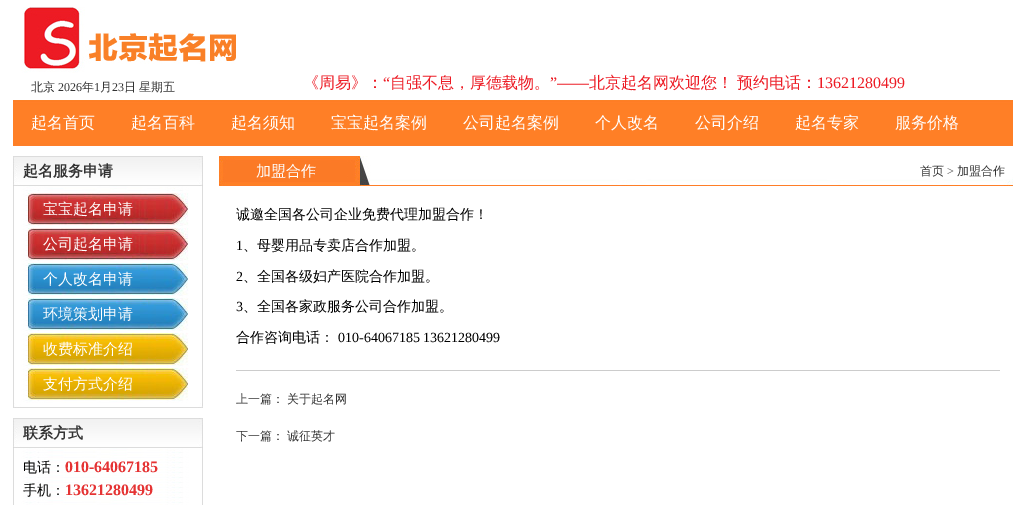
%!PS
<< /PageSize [1026 505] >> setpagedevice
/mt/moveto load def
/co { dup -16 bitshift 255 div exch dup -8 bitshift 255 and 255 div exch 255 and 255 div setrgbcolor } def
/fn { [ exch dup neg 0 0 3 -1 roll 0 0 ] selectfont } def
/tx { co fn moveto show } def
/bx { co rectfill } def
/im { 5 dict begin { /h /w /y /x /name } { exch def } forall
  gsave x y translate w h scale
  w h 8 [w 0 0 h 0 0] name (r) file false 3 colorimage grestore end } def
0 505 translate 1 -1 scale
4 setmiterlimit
0 0 1026 505 16#FFFFFF bx
(media/1.raw) 21 7 215 66 im
(media/2.raw) 13 100 1000 46 im
(media/3.raw) 13 186 190 222 im
(media/4.raw) 13 156 190 30 im
(media/5.raw) 14 403 189 5 im
(media/6.raw) 28 193 160 32 im
(media/6.raw) 28 228 160 32 im
(media/7.raw) 28 263 160 32 im
(media/7.raw) 28 298 160 32 im
(media/8.raw) 28 333 160 32 im
(media/8.raw) 28 368 160 32 im
(media/9.raw) 13 448 190 57 im
(media/4.raw) 13 418 190 30 im
(media/10.raw) 219 156 794 30 im
236 370 764 1 16#CCCCCC bx
(北京) 31 91 /WenQuanYiZenHei-Medium 12 16#333333 tx
(2026) 58 91 /LiberationSerif-Regular 12 16#333333 tx
(年) 82 91 /WenQuanYiZenHei-Medium 12 16#333333 tx
(1) 94 91 /LiberationSerif-Regular 12 16#333333 tx
(月) 100 91 /WenQuanYiZenHei-Medium 12 16#333333 tx
(23) 112 91 /LiberationSerif-Regular 12 16#333333 tx
/WenQuanYiZenHei-Medium 12 fn
124 91 mt -1 0 32 (日 星期五) widthshow
(《周易》：) 303 88 /WenQuanYiZenHei-Medium 16 16#ED1B24 tx
(“) 383 88 /LiberationSerif-Regular 16 16#ED1B24 tx
(自强不息，厚德载物。) 390 88 /WenQuanYiZenHei-Medium 16 16#ED1B24 tx
(”——) 550 88 /LiberationSerif-Regular 16 16#ED1B24 tx
(北京起名网欢迎您！) 589 88 /WenQuanYiZenHei-Medium 16 16#ED1B24 tx
(预约电话：) 737 88 /WenQuanYiZenHei-Medium 16 16#ED1B24 tx
(13621280499) 817 88 /LiberationSerif-Regular 16 16#ED1B24 tx
(起名首页) 31 128 /WenQuanYiZenHei-Medium 16 16#FFFFFF tx
(起名百科) 131 128 /WenQuanYiZenHei-Medium 16 16#FFFFFF tx
(起名须知) 231 128 /WenQuanYiZenHei-Medium 16 16#FFFFFF tx
(宝宝起名案例) 331 128 /WenQuanYiZenHei-Medium 16 16#FFFFFF tx
(公司起名案例) 463 128 /WenQuanYiZenHei-Medium 16 16#FFFFFF tx
(个人改名) 595 128 /WenQuanYiZenHei-Medium 16 16#FFFFFF tx
(公司介绍) 695 128 /WenQuanYiZenHei-Medium 16 16#FFFFFF tx
(起名专家) 795 128 /WenQuanYiZenHei-Medium 16 16#FFFFFF tx
(服务价格) 895 128 /WenQuanYiZenHei-Medium 16 16#FFFFFF tx
(起名服务申请) 23 176 /WenQuanYiZenHei-Bold 15 16#333333 tx
(宝宝起名申请) 43 214 /WenQuanYiZenHei-Medium 15 16#FFFFFF tx
(公司起名申请) 43 249 /WenQuanYiZenHei-Medium 15 16#FFFFFF tx
(个人改名申请) 43 284 /WenQuanYiZenHei-Medium 15 16#FFFFFF tx
(环境策划申请) 43 319 /WenQuanYiZenHei-Medium 15 16#FFFFFF tx
(收费标准介绍) 43 354 /WenQuanYiZenHei-Medium 15 16#FFFFFF tx
(支付方式介绍) 43 389 /WenQuanYiZenHei-Medium 15 16#FFFFFF tx
(联系方式) 23 438 /WenQuanYiZenHei-Bold 15 16#333333 tx
(电话：) 23 472 /WenQuanYiZenHei-Medium 14 16#000000 tx
(010-64067185) 65 472 /LiberationSerif-Bold 16 16#E53333 tx
(手机：) 23 495 /WenQuanYiZenHei-Medium 14 16#000000 tx
(13621280499) 65 495 /LiberationSerif-Bold 16 16#E53333 tx
(加盟合作) 256 176 /WenQuanYiZenHei-Medium 15 16#FFFFFF tx
(首页) 920 175 /WenQuanYiZenHei-Medium 12 16#333333 tx
(>) 947 175 /LiberationSerif-Regular 12 16#555555 tx
(加盟合作) 957 175 /WenQuanYiZenHei-Medium 12 16#333333 tx
(诚邀全国各公司企业免费代理加盟合作！) 236 219 /WenQuanYiZenHei-Medium 14 16#000000 tx
(1) 236 250 /LiberationSerif-Regular 14 16#000000 tx
(、母婴用品专卖店合作加盟。) 243 250 /WenQuanYiZenHei-Medium 14 16#000000 tx
(2) 236 281 /LiberationSerif-Regular 14 16#000000 tx
(、全国各级妇产医院合作加盟。) 243 281 /WenQuanYiZenHei-Medium 14 16#000000 tx
(3) 236 311 /LiberationSerif-Regular 14 16#000000 tx
(、全国各家政服务公司合作加盟。) 243 311 /WenQuanYiZenHei-Medium 14 16#000000 tx
(合作咨询电话：) 236 342 /WenQuanYiZenHei-Medium 14 16#000000 tx
(010-64067185 13621280499) 338 342 /LiberationSerif-Regular 14 16#000000 tx
(上一篇：) 236 403 /WenQuanYiZenHei-Medium 12 16#333333 tx
(关于起名网) 287 403 /WenQuanYiZenHei-Medium 12 16#333333 tx
(下一篇：) 236 440 /WenQuanYiZenHei-Medium 12 16#333333 tx
(诚征英才) 287 440 /WenQuanYiZenHei-Medium 12 16#333333 tx
showpage
